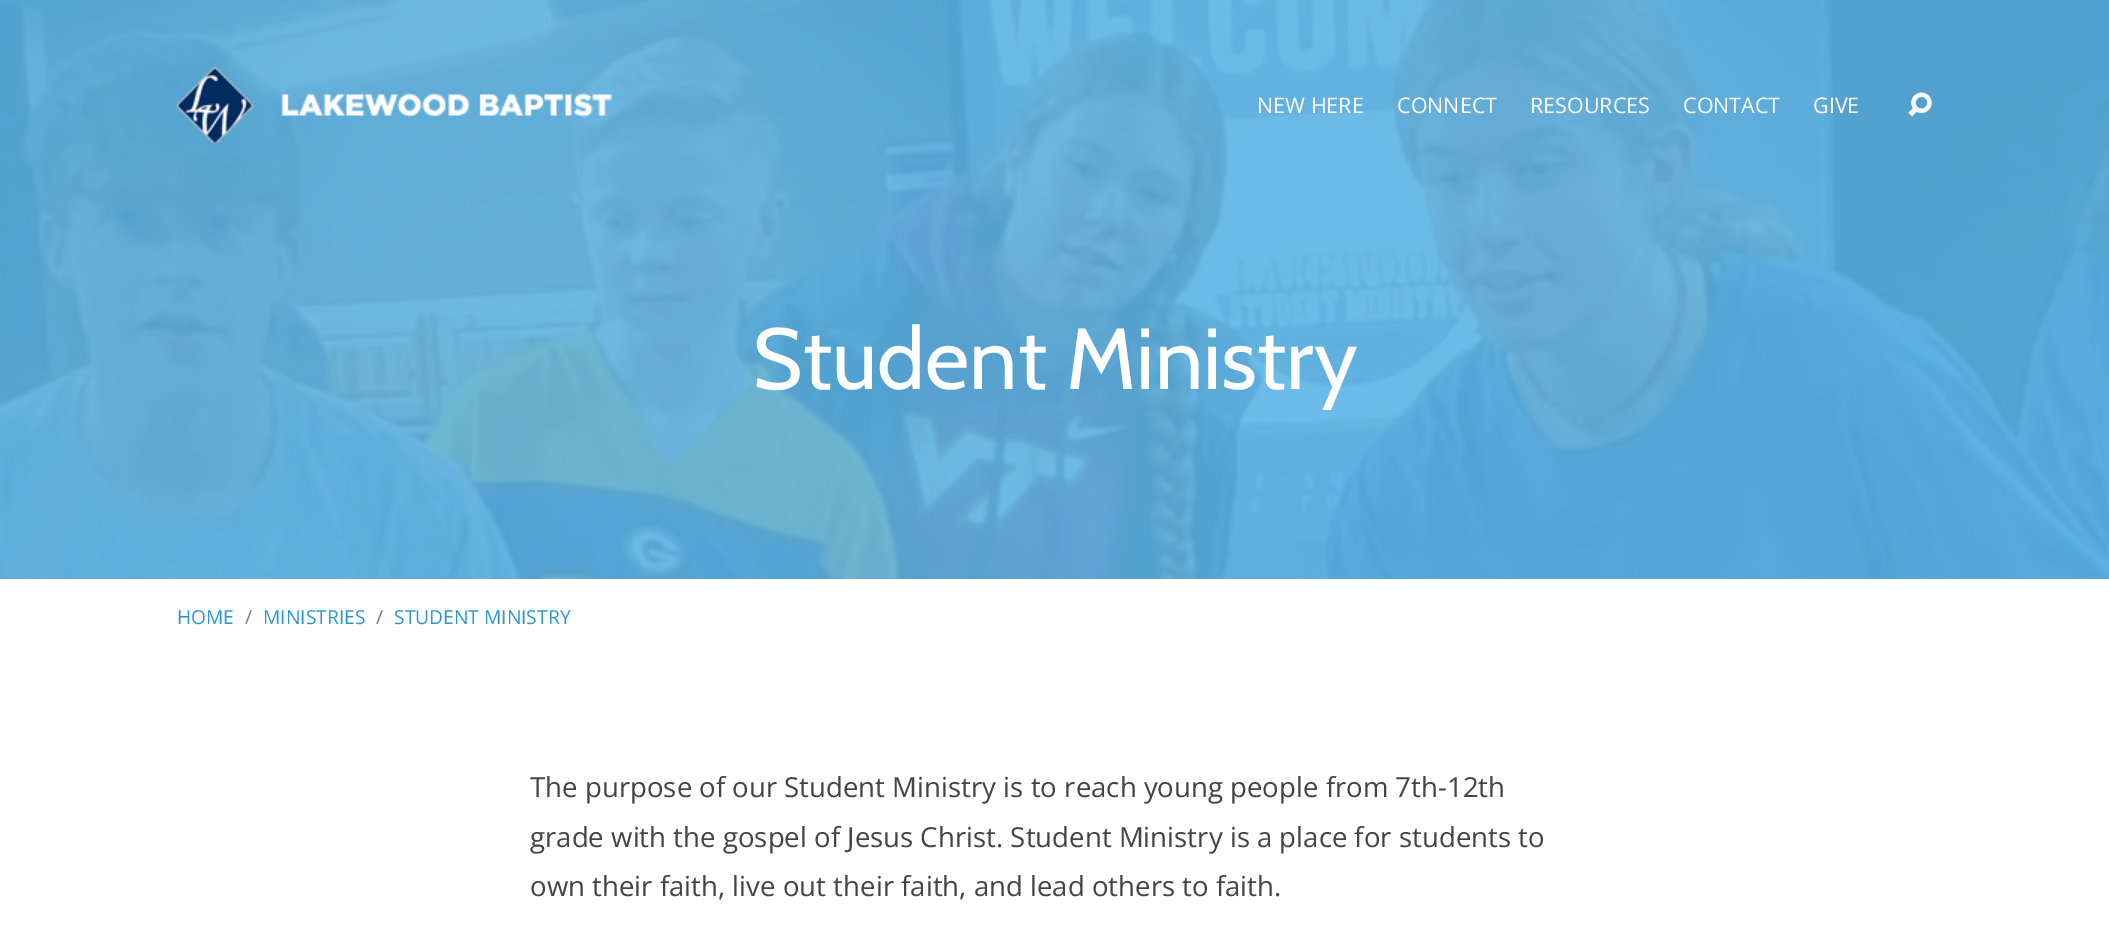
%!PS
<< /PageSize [2109 940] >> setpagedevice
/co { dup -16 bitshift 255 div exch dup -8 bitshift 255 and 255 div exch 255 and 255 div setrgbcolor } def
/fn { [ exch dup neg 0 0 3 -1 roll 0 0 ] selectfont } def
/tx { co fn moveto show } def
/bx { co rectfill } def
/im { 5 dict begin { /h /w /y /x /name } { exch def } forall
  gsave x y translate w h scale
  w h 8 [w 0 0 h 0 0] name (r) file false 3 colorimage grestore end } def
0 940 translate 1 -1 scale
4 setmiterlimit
0 0 2109 940 16#FFFFFF bx
0 0 2109 579 16#5BB3E5 bx
(media/3.raw) 0 0 2109 579 im
(media/1.raw) 177 67 436 76 im
(media/2.raw) 1908 92 24 25 im
(NEW HERE) 1257 113 /OpenSans-Regular 21.5 16#FFFFFF tx
(CONNECT) 1397 113 /OpenSans-Regular 21.5 16#FFFFFF tx
(RESOURCES) 1530 113 /OpenSans-Regular 21.5 16#FFFFFF tx
(CONTACT) 1683 113 /OpenSans-Regular 21.5 16#FFFFFF tx
(GIVE) 1813 113 /OpenSans-Regular 21.5 16#FFFFFF tx
(Student Ministry) 752 389 /Cabin-Regular 86.5 16#FFFFFF tx
(HOME) 177 624 /OpenSans-Regular 19.25 16#2D98CE tx
(/) 245 624 /OpenSans-Regular 19.25 16#777777 tx
(MINISTRIES) 263 624 /OpenSans-Regular 19.25 16#2D98CE tx
(/) 376 624 /OpenSans-Regular 19.25 16#777777 tx
(STUDENT MINISTRY) 394 624 /OpenSans-Regular 19.25 16#2D98CE tx
(The purpose of our Student Ministry is to reach young people from 7th-12th) 530 797 /OpenSans-Regular 27.6 16#444444 tx
(grade with the gospel of Jesus Christ. Student Ministry is a place for students to) 530 847 /OpenSans-Regular 27.6 16#444444 tx
(own their faith, live out their faith, and lead others to faith.) 530 896 /OpenSans-Regular 27.6 16#444444 tx
showpage
